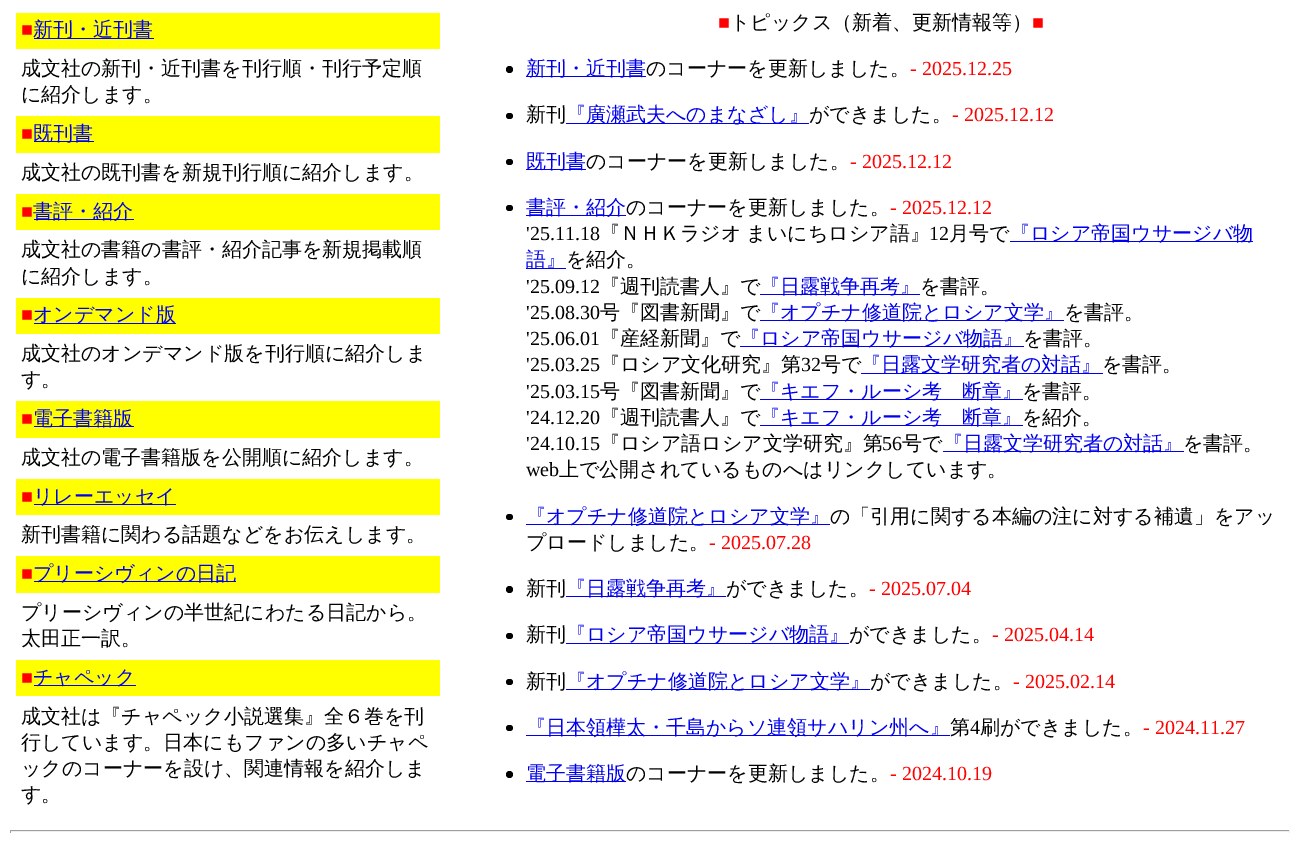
%!PS
<< /PageSize [1300 846] >> setpagedevice
/mt/moveto load def
/fl/fill load def
/co { dup -16 bitshift 255 div exch dup -8 bitshift 255 and 255 div exch 255 and 255 div setrgbcolor } def
/fn { [ exch dup neg 0 0 3 -1 roll 0 0 ] selectfont } def
/tx { co fn moveto show } def
/bx { co rectfill } def
/ci { newpath 0 360 arc closepath } def
/rr { 5 dict begin { /r /h /w /y /x } { exch def } forall
  x r add y moveto x w add y 2 copy h add r arct x w add y h add x 1 index r arct
  x y h add x y r arct x y 2 copy exch w add exch r arct closepath end } def
0 846 translate 1 -1 scale
4 setmiterlimit
0 0 1300 846 16#FFFFFF bx
16 13 424 36 16#FFFF00 bx
34 38 120 1 16#0000EE bx
16 116 424 37 16#FFFF00 bx
34 141 60 1 16#0000EE bx
16 194 424 36 16#FFFF00 bx
34 219 100 1 16#0000EE bx
16 298 424 36 16#FFFF00 bx
34 323 142 1 16#0000EE bx
16 401 424 37 16#FFFF00 bx
34 426 100 1 16#0000EE bx
16 479 424 36 16#FFFF00 bx
34 504 142 1 16#0000EE bx
16 556 424 37 16#FFFF00 bx
34 581 202 1 16#0000EE bx
16 660 424 36 16#FFFF00 bx
34 685 102 1 16#0000EE bx
16#000000 co
509.5 69.5 3.5 ci fl
526 76 120 1 16#0000EE bx
16#000000 co
506 113 7 6 3 rr fl
566 123 243 1 16#0000EE bx
16#000000 co
506 159 7 6 3 rr fl
526 169 60 1 16#0000EE bx
16#000000 co
506 205 7 6 3 rr fl
526 215 100 1 16#0000EE bx
1010 241 243 1 16#0000EE bx
526 268 40 1 16#0000EE bx
760 294 160 1 16#0000EE bx
760 320 304 1 16#0000EE bx
740 346 284 1 16#0000EE bx
760 399 263 1 16#0000EE bx
760 425 263 1 16#0000EE bx
943 451 241 1 16#0000EE bx
16#000000 co
506 514 7 6 3 rr fl
526 524 304 1 16#0000EE bx
16#000000 co
509.5 589.5 3.5 ci fl
566 596 160 1 16#0000EE bx
16#000000 co
506 633 7 6 3 rr fl
566 643 283 1 16#0000EE bx
16#000000 co
506 679 7 6 3 rr fl
566 689 304 1 16#0000EE bx
16#000000 co
506 725 7 6 3 rr fl
526 735 424 1 16#0000EE bx
16#000000 co
509.5 774.5 3.5 ci fl
526 781 100 1 16#0000EE bx
10 830 1280 1 16#9F9F9F bx
1289 830 1 3 16#EEEEEE bx
10 831 1280 1 16#EEEEEE bx
10 830 1 3 16#9F9F9F bx
(■) 21 36 /LiberationSerif-Regular 20 16#FF0000 tx
(新刊・近刊書) 33 36 /WenQuanYiZenHei-Medium 20 16#0000EE tx
(成文社の新刊・近刊書を刊行順・刊行予定順) 21 75 /WenQuanYiZenHei-Medium 20 16#000000 tx
(に紹介します。) 21 101 /WenQuanYiZenHei-Medium 20 16#000000 tx
(■) 21 140 /LiberationSerif-Regular 20 16#FF0000 tx
(既刊書) 33 140 /WenQuanYiZenHei-Medium 20 16#0000EE tx
(成文社の既刊書を新規刊行順に紹介します。) 21 179 /WenQuanYiZenHei-Medium 20 16#000000 tx
(■) 21 218 /LiberationSerif-Regular 20 16#FF0000 tx
(書評・紹介) 33 218 /WenQuanYiZenHei-Medium 20 16#0000EE tx
(成文社の書籍の書評・紹介記事を新規掲載順) 21 256 /WenQuanYiZenHei-Medium 20 16#000000 tx
(に紹介します。) 21 283 /WenQuanYiZenHei-Medium 20 16#000000 tx
(■) 21 321 /LiberationSerif-Regular 20 16#FF0000 tx
(オンデマンド版) 33 321 /WenQuanYiZenHei-Medium 20 16#0000EE tx
(成文社のオンデマンド版を刊行順に紹介しま) 21 360 /WenQuanYiZenHei-Medium 20 16#000000 tx
(す。) 21 386 /WenQuanYiZenHei-Medium 20 16#000000 tx
(■) 21 425 /LiberationSerif-Regular 20 16#FF0000 tx
(電子書籍版) 33 425 /WenQuanYiZenHei-Medium 20 16#0000EE tx
(成文社の電子書籍版を公開順に紹介します。) 21 464 /WenQuanYiZenHei-Medium 20 16#000000 tx
(■) 21 503 /LiberationSerif-Regular 20 16#FF0000 tx
(リレーエッセイ) 33 503 /WenQuanYiZenHei-Medium 20 16#0000EE tx
(新刊書籍に関わる話題などをお伝えします。) 21 541 /WenQuanYiZenHei-Medium 20 16#000000 tx
(■) 21 580 /LiberationSerif-Regular 20 16#FF0000 tx
(プリーシヴィンの日記) 33 580 /WenQuanYiZenHei-Medium 20 16#0000EE tx
(プリーシヴィンの半世紀にわたる日記から。) 21 619 /WenQuanYiZenHei-Medium 20 16#000000 tx
(太田正一訳。) 21 645 /WenQuanYiZenHei-Medium 20 16#000000 tx
(■) 21 684 /LiberationSerif-Regular 20 16#FF0000 tx
(チャペック) 33 684 /WenQuanYiZenHei-Medium 20 16#0000EE tx
(成文社は『チャペック小説選集』全６巻を刊) 21 723 /WenQuanYiZenHei-Medium 20 16#000000 tx
(行しています。日本にもファンの多いチャペ) 21 749 /WenQuanYiZenHei-Medium 20 16#000000 tx
(ックのコーナーを設け、関連情報を紹介しま) 21 775 /WenQuanYiZenHei-Medium 20 16#000000 tx
(す。) 21 801 /WenQuanYiZenHei-Medium 20 16#000000 tx
(■) 718 29 /LiberationSerif-Regular 20 16#FF0000 tx
(トピックス（新着、更新情報等）) 730 29 /WenQuanYiZenHei-Medium 20 16#000000 tx
(■) 1032 29 /LiberationSerif-Regular 20 16#FF0000 tx
(新刊・近刊書) 526 75 /WenQuanYiZenHei-Medium 20 16#0000EE tx
(のコーナーを更新しました。) 646 75 /WenQuanYiZenHei-Medium 20 16#000000 tx
(- 2025.12.25) 910 75 /LiberationSerif-Regular 20 16#FF0000 tx
(新刊) 526 121 /WenQuanYiZenHei-Medium 20 16#000000 tx
(『廣瀬武夫へのまなざし』) 566 121 /WenQuanYiZenHei-Medium 20 16#0000EE tx
(ができました。) 809 121 /WenQuanYiZenHei-Medium 20 16#000000 tx
(- 2025.12.12) 952 121 /LiberationSerif-Regular 20 16#FF0000 tx
(既刊書) 526 168 /WenQuanYiZenHei-Medium 20 16#0000EE tx
(のコーナーを更新しました。) 586 168 /WenQuanYiZenHei-Medium 20 16#000000 tx
(- 2025.12.12) 850 168 /LiberationSerif-Regular 20 16#FF0000 tx
(書評・紹介) 526 214 /WenQuanYiZenHei-Medium 20 16#0000EE tx
(のコーナーを更新しました。) 626 214 /WenQuanYiZenHei-Medium 20 16#000000 tx
(- 2025.12.12) 890 214 /LiberationSerif-Regular 20 16#FF0000 tx
('25.11.18) 526 240 /LiberationSerif-Regular 20 16#000000 tx
/WenQuanYiZenHei-Medium 20 fn
600 240 mt -1 0 32 (『ＮＨＫラジオ まいにちロシア語』) widthshow
(12) 929 240 /LiberationSerif-Regular 20 16#000000 tx
(月号で) 949 240 /WenQuanYiZenHei-Medium 20 16#000000 tx
(『ロシア帝国ウサージバ物) 1010 240 /WenQuanYiZenHei-Medium 20 16#0000EE tx
(語』) 526 266 /WenQuanYiZenHei-Medium 20 16#0000EE tx
(を紹介。) 566 266 /WenQuanYiZenHei-Medium 20 16#000000 tx
('25.09.12) 526 293 /LiberationSerif-Regular 20 16#000000 tx
(『週刊読書人』で) 600 293 /WenQuanYiZenHei-Medium 20 16#000000 tx
(『日露戦争再考』) 760 293 /WenQuanYiZenHei-Medium 20 16#0000EE tx
(を書評。) 920 293 /WenQuanYiZenHei-Medium 20 16#000000 tx
('25.08.30) 526 319 /LiberationSerif-Regular 20 16#000000 tx
(号『図書新聞』で) 600 319 /WenQuanYiZenHei-Medium 20 16#000000 tx
(『オプチナ修道院とロシア文学』) 760 319 /WenQuanYiZenHei-Medium 20 16#0000EE tx
(を書評。) 1064 319 /WenQuanYiZenHei-Medium 20 16#000000 tx
('25.06.01) 526 345 /LiberationSerif-Regular 20 16#000000 tx
(『産経新聞』で) 600 345 /WenQuanYiZenHei-Medium 20 16#000000 tx
(『ロシア帝国ウサージバ物語』) 740 345 /WenQuanYiZenHei-Medium 20 16#0000EE tx
(を書評。) 1023 345 /WenQuanYiZenHei-Medium 20 16#000000 tx
('25.03.25) 526 371 /LiberationSerif-Regular 20 16#000000 tx
(『ロシア文化研究』第) 600 371 /WenQuanYiZenHei-Medium 20 16#000000 tx
(32) 801 371 /LiberationSerif-Regular 20 16#000000 tx
(号で) 821 371 /WenQuanYiZenHei-Medium 20 16#000000 tx
861 373 242 1 16#0000EE bx
(『日露文学研究者の対話』) 861 371 /WenQuanYiZenHei-Medium 20 16#0000EE tx
(を書評。) 1102 371 /WenQuanYiZenHei-Medium 20 16#000000 tx
('25.03.15) 526 398 /LiberationSerif-Regular 20 16#000000 tx
(号『図書新聞』で) 600 398 /WenQuanYiZenHei-Medium 20 16#000000 tx
(『キエフ・ルーシ考　断章』) 760 398 /WenQuanYiZenHei-Medium 20 16#0000EE tx
(を書評。) 1022 398 /WenQuanYiZenHei-Medium 20 16#000000 tx
('24.12.20) 526 424 /LiberationSerif-Regular 20 16#000000 tx
(『週刊読書人』で) 600 424 /WenQuanYiZenHei-Medium 20 16#000000 tx
(『キエフ・ルーシ考　断章』) 760 424 /WenQuanYiZenHei-Medium 20 16#0000EE tx
(を紹介。) 1022 424 /WenQuanYiZenHei-Medium 20 16#000000 tx
('24.10.15) 526 450 /LiberationSerif-Regular 20 16#000000 tx
(『ロシア語ロシア文学研究』第) 600 450 /WenQuanYiZenHei-Medium 20 16#000000 tx
(56) 882 450 /LiberationSerif-Regular 20 16#000000 tx
(号で) 902 450 /WenQuanYiZenHei-Medium 20 16#000000 tx
(『日露文学研究者の対話』) 943 450 /WenQuanYiZenHei-Medium 20 16#0000EE tx
(を書評。) 1183 450 /WenQuanYiZenHei-Medium 20 16#000000 tx
(web) 526 476 /LiberationSerif-Regular 20 16#000000 tx
(上で公開されているものへはリンクしています。) 559 476 /WenQuanYiZenHei-Medium 20 16#000000 tx
(『オプチナ修道院とロシア文学』) 526 523 /WenQuanYiZenHei-Medium 20 16#0000EE tx
(の「引用に関する本編の注に対する補遺」をアッ) 830 523 /WenQuanYiZenHei-Medium 20 16#000000 tx
(プロードしました。) 526 549 /WenQuanYiZenHei-Medium 20 16#000000 tx
(- 2025.07.28) 709 549 /LiberationSerif-Regular 20 16#FF0000 tx
(新刊) 526 595 /WenQuanYiZenHei-Medium 20 16#000000 tx
(『日露戦争再考』) 566 595 /WenQuanYiZenHei-Medium 20 16#0000EE tx
(ができました。) 726 595 /WenQuanYiZenHei-Medium 20 16#000000 tx
(- 2025.07.04) 869 595 /LiberationSerif-Regular 20 16#FF0000 tx
(新刊) 526 641 /WenQuanYiZenHei-Medium 20 16#000000 tx
(『ロシア帝国ウサージバ物語』) 566 641 /WenQuanYiZenHei-Medium 20 16#0000EE tx
(ができました。) 849 641 /WenQuanYiZenHei-Medium 20 16#000000 tx
(- 2025.04.14) 992 641 /LiberationSerif-Regular 20 16#FF0000 tx
(新刊) 526 688 /WenQuanYiZenHei-Medium 20 16#000000 tx
(『オプチナ修道院とロシア文学』) 566 688 /WenQuanYiZenHei-Medium 20 16#0000EE tx
(ができました。) 870 688 /WenQuanYiZenHei-Medium 20 16#000000 tx
(- 2025.02.14) 1013 688 /LiberationSerif-Regular 20 16#FF0000 tx
(『日本領樺太・千島からソ連領サハリン州へ』) 526 734 /WenQuanYiZenHei-Medium 20 16#0000EE tx
(第) 950 734 /WenQuanYiZenHei-Medium 20 16#000000 tx
(4) 970 734 /LiberationSerif-Regular 20 16#000000 tx
(刷ができました。) 980 734 /WenQuanYiZenHei-Medium 20 16#000000 tx
(- 2024.11.27) 1143 734 /LiberationSerif-Regular 20 16#FF0000 tx
(電子書籍版) 526 780 /WenQuanYiZenHei-Medium 20 16#0000EE tx
(のコーナーを更新しました。) 626 780 /WenQuanYiZenHei-Medium 20 16#000000 tx
(- 2024.10.19) 890 780 /LiberationSerif-Regular 20 16#FF0000 tx
showpage
